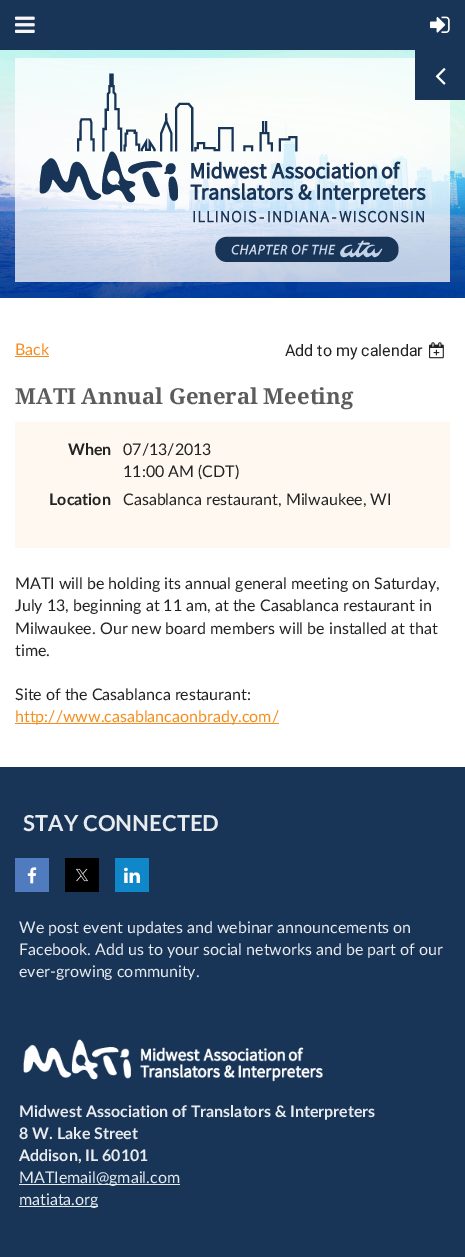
%!PS
<< /PageSize [465 1257] /PageUsesTransparency true >> setpagedevice
/co { dup -16 bitshift 255 div exch dup -8 bitshift 255 and 255 div exch 255 and 255 div setrgbcolor } def
/fn { [ exch dup neg 0 0 3 -1 roll 0 0 ] selectfont } def
/tx { co fn moveto show } def
/bx { co rectfill } def
/al { dup .setfillconstantalpha .setstrokeconstantalpha } def
/im { 5 dict begin { /h /w /y /x /name } { exch def } forall
  gsave x y translate w h scale
  w h 8 [w 0 0 h 0 0] name (r) file false 3 colorimage grestore end } def
0 .pushpdf14devicefilter
0 1257 translate 1 -1 scale
4 setmiterlimit
0 0 465 1257 16#FFFFFF bx
(media/4.raw) 0 50 465 248 im
0.73 al
15 58 435 224 16#FFFFFF bx
1 al
(media/5.raw) 39 73 387 189 im
415 50 50 50 16#183457 bx
(media/1.raw) 435 68 11 17 im
0 0 465 50 16#183457 bx
(media/2.raw) 15 16 20 17 im
(media/3.raw) 430 16 20 17 im
15 356 34 1 16#F48D1D bx
(media/6.raw) 429 342 15 17 im
15 422 435 126 16#FFF8F1 bx
15 723 264 1 16#F48D1D bx
0 767 465 490 16#183457 bx
15 858 34 34 16#507BBE bx
(media/7.raw) 27 867 10 17 im
65 858 34 34 16#000000 bx
(media/8.raw) 76 868 12 14 im
115 858 34 34 16#1087C9 bx
(media/9.raw) 124 867 16 16 im
(media/10.raw) 23 1039 300 43 im
19 1184 161 1 16#E8EBEE bx
19 1206 79 1 16#E8EBEE bx
(Back) 15 355 /Lato-Regular 16 16#F48D1D tx
(Add to my calendar) 285 356 /Roboto-Regular 16 16#222222 tx
(MATI Annual General Meeting) 15 404 /DroidSerif-Bold 22 16#5C5C5C tx
(When) 68 455 /Lato-Bold 16 16#222222 tx
(07/13/2013) 123 455 /Lato-Regular 16 16#222222 tx
(11:00 AM \(CDT\)) 123 477 /Lato-Regular 16 16#222222 tx
(Location) 49 505 /Lato-Bold 16 16#222222 tx
(Casablanca restaurant, Milwaukee, WI) 123 505 /Lato-Regular 16 16#222222 tx
(MATI will be holding its annual general meeting on Saturday,) 15 589 /Lato-Regular 16 16#222222 tx
(July 13, beginning at 11 am, at the Casablanca restaurant in) 15 611 /Lato-Regular 16 16#222222 tx
(Milwaukee. Our new board members will be installed at that) 15 634 /Lato-Regular 16 16#222222 tx
(time.) 15 656 /Lato-Regular 16 16#222222 tx
(Site of the Casablanca restaurant:) 15 700 /Lato-Regular 16 16#222222 tx
(http://www.casablancaonbrady.com/) 15 722 /Lato-Regular 16 16#F48D1D tx
(STAY CONNECTED) 23 831 /Lato-Bold 22 16#E8EBEE tx
(We post event updates and webinar announcements on) 19 933 /Lato-Regular 16 16#E8EBEE tx
(Facebook. Add us to your social networks and be part of our) 19 955 /Lato-Regular 16 16#E8EBEE tx
(ever-growing community.) 19 977 /Lato-Regular 16 16#E8EBEE tx
(Midwest Association of Translators & Interpreters) 19 1117 /Lato-Bold 16 16#E8EBEE tx
(8 W. Lake Street) 19 1139 /Lato-Bold 16 16#E8EBEE tx
(Addison, IL 60101) 19 1161 /Lato-Bold 16 16#E8EBEE tx
(MATIemail@gmail.com) 19 1183 /Lato-Regular 16 16#E8EBEE tx
(matiata.org) 19 1205 /Lato-Regular 16 16#E8EBEE tx
.poppdf14devicefilter showpage
